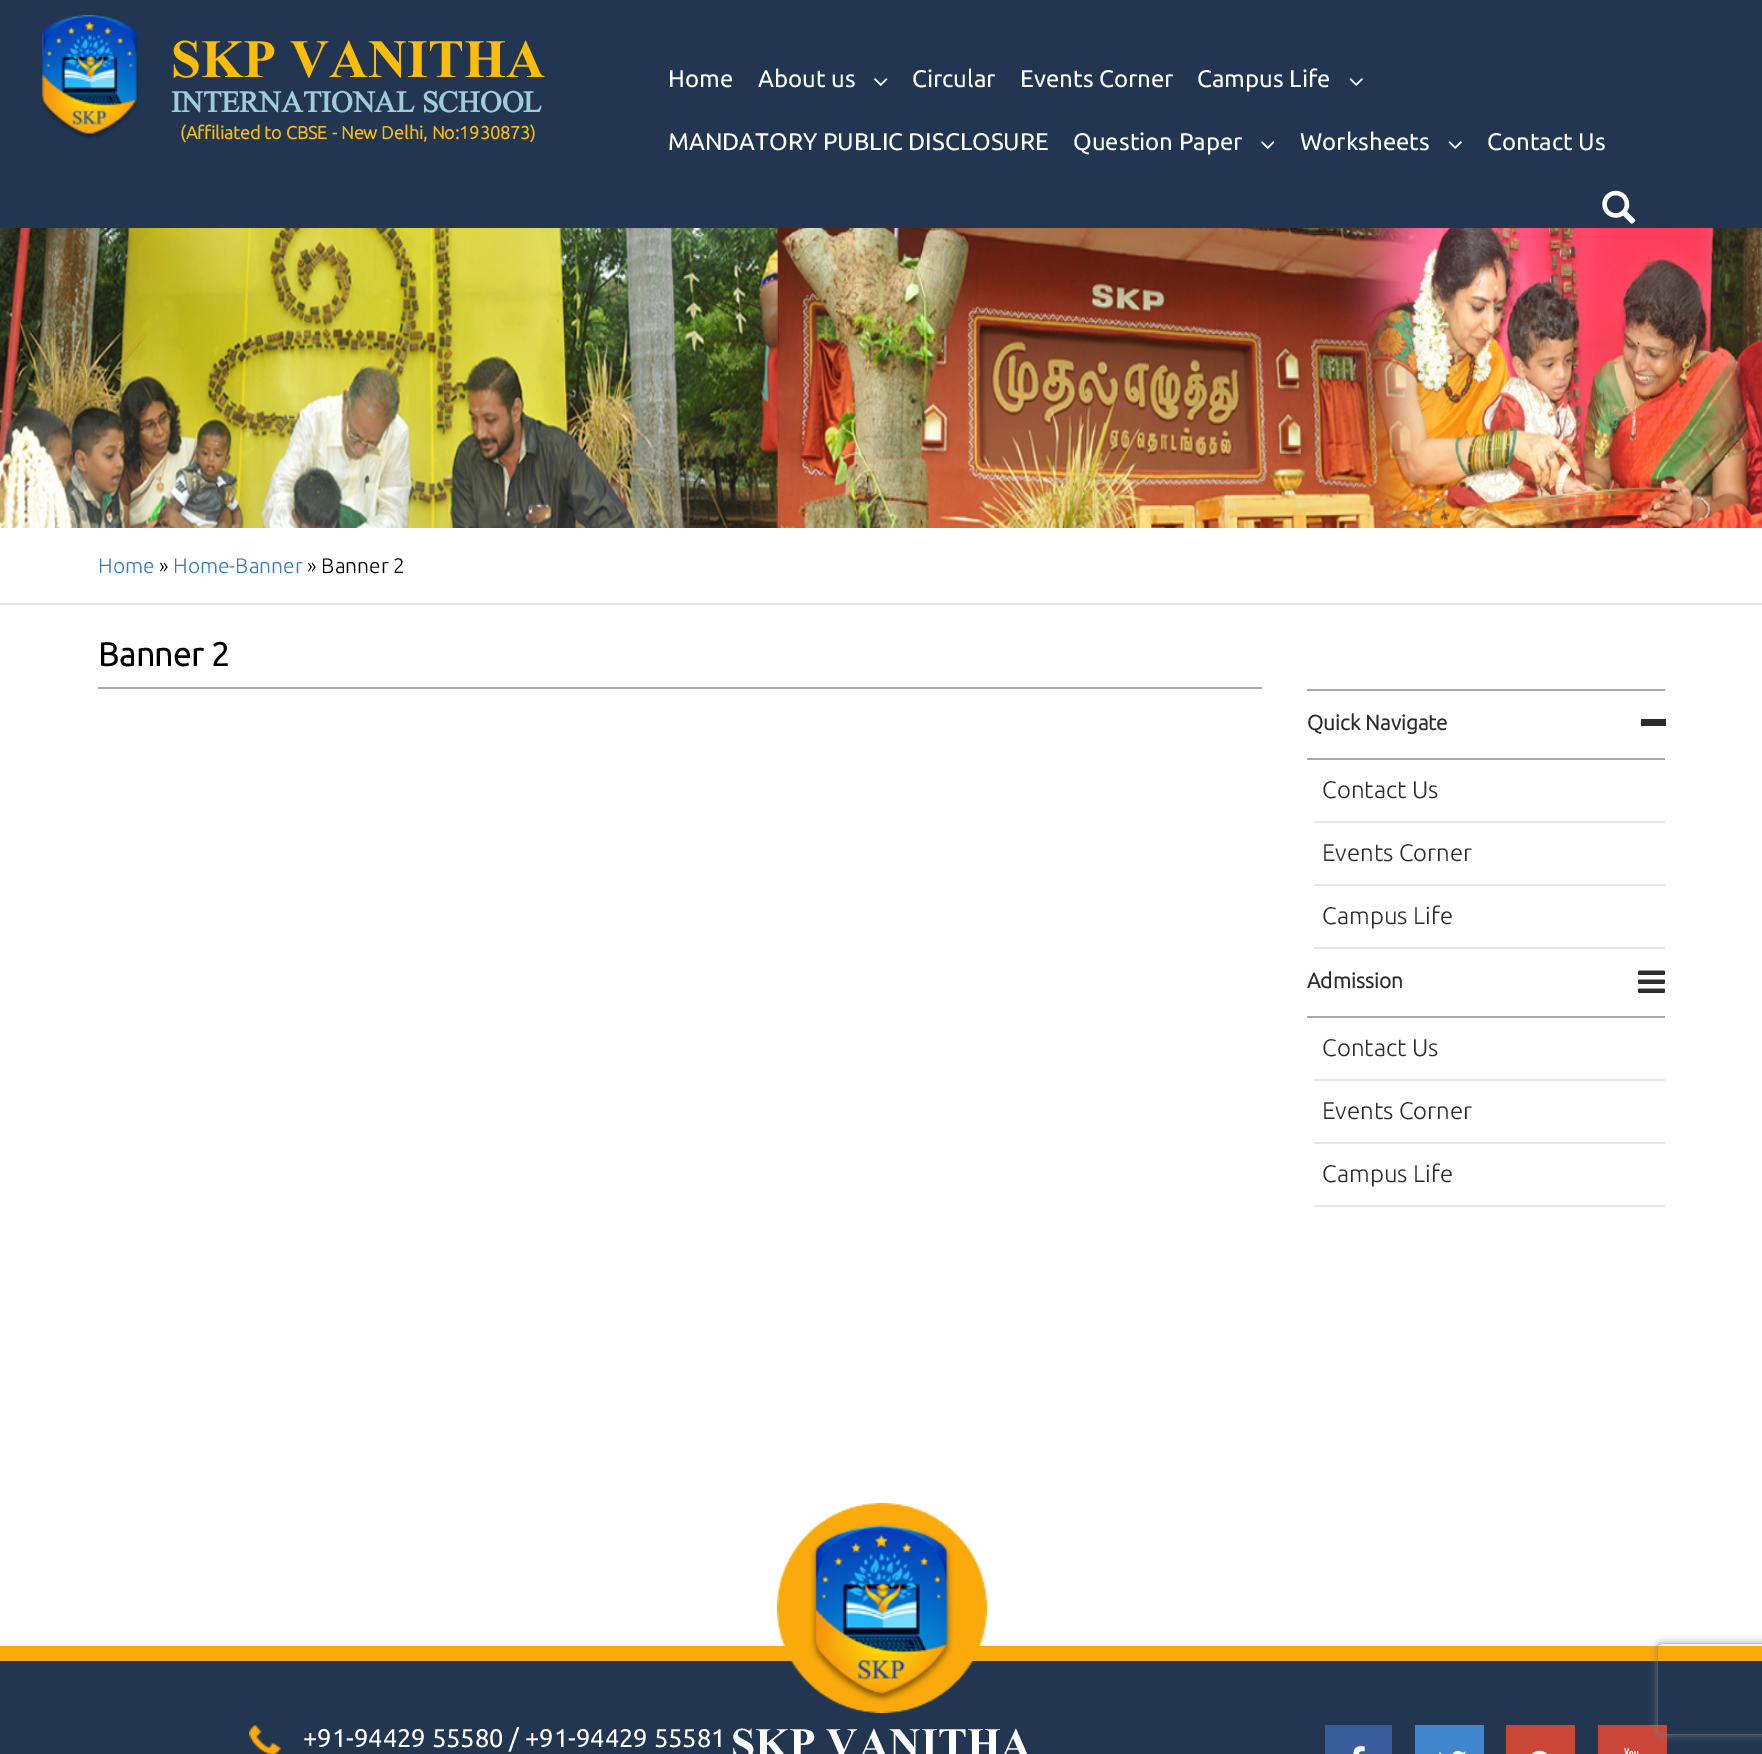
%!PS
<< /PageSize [1762 1754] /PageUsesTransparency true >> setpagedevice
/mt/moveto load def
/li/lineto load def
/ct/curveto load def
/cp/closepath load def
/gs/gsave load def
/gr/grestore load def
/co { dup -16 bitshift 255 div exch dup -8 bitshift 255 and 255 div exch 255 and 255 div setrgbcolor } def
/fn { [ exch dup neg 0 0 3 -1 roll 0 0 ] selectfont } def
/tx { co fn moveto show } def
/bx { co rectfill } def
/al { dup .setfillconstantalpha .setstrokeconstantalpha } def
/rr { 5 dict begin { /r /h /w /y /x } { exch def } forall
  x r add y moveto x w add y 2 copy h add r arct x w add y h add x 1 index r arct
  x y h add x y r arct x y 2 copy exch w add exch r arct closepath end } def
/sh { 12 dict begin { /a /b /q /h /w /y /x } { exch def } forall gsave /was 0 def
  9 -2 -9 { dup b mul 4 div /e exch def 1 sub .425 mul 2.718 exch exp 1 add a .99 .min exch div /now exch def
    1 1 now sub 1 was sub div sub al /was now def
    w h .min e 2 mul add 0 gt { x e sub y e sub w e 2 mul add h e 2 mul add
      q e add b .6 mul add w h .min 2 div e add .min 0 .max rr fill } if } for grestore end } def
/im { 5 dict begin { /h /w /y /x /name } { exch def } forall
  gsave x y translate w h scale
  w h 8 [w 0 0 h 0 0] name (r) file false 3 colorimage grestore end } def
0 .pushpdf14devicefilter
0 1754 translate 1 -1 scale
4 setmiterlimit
0 0 1762 1754 16#FFFFFF bx
0 0 1762 228 16#223652 bx
(media/1.raw) 41 15 97 124 im
(media/2.raw) 874 78 14 8 im
(media/3.raw) 1349 78 14 8 im
(media/2.raw) 1261 141 14 8 im
(media/3.raw) 1448 141 14 8 im
(media/4.raw) 1602 190 34 34 im
(media/5.raw) 0 228 1762 300 im
0 603 1762 2 16#E6E6E6 bx
98 687 1164 2 16#A8A8A8 bx
1307 689 358 2 16#A8A8A8 bx
1307 758 358 2 16#A8A8A8 bx
1641 719 25 7 16#2D2D2D bx
1314 821 351 2 16#E5E5E5 bx
1314 884 351 2 16#E5E5E5 bx
1314 947 351 2 16#E5E5E5 bx
1307 1016 358 2 16#A8A8A8 bx
(media/6.raw) 1638 970 27 23 im
1314 1079 351 2 16#E5E5E5 bx
1314 1142 351 2 16#E5E5E5 bx
1314 1205 351 2 16#E5E5E5 bx
0 1661 1762 93 16#223652 bx
0 1646 1762 15 16#FAAA0B bx
(media/7.raw) 249 1725 32 29 im
1325 1725 67 29 16#3A5B9C bx
(media/8.raw) 1353 1746 12 8 im
1415 1725 69 29 16#4186CD bx
(media/9.raw) 1439 1750 28 4 im
1506 1725 69 29 16#CA4738 bx
(media/10.raw) 1531 1750 16 4 im
1598 1725 69 29 16#CA4638 bx
(media/11.raw) 1624 1748 15 6 im
(media/12.raw) 777 1503 210 210 im
gs
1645 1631 mt 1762 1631 li 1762 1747 li 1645 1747 li cp 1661 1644 mt 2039 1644 li 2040.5 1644 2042 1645.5 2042 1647 ct 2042 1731 li 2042 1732.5 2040.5 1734 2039 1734 ct 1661 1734 li 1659.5 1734 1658 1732.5 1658 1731 ct 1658 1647 li 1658 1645.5 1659.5 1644 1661 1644 ct cp eoclip newpath
16#808080 co
1658 1644 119 90 3 4 1 sh
gr
(SKP VANITHA) 171 77 /TimesNewRoman-Bold 54 16#FCBC0A tx
(INTERNATIONAL SCHOOL) 171 112 /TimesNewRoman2-Bold 30 16#A0CCD9 tx
(\(Affiliated to CBSE - New Delhi, No:1930873\)) 180 139 /Ubuntu-Bold 18 16#FCBC0A tx
(Home) 668 87 /Ubuntu-Regular 24 16#FFFFFF tx
(About us) 758 87 /Ubuntu-Regular 24 16#FFFFFF tx
(Circular) 912 87 /Ubuntu-Regular 24 16#FFFFFF tx
(Events Corner) 1020 87 /Ubuntu-Regular 24 16#FFFFFF tx
(Campus Life) 1197 87 /Ubuntu-Regular 24 16#FFFFFF tx
(MANDATORY PUBLIC DISCLOSURE) 668 150 /Ubuntu-Regular 24 16#FFFFFF tx
(Question Paper) 1073 150 /Ubuntu-Regular 24 16#FFFFFF tx
(Worksheets) 1300 150 /Ubuntu-Regular 24 16#FFFFFF tx
(Contact Us) 1487 150 /Ubuntu-Regular 24 16#FFFFFF tx
(Home) 98 573 /Ubuntu-Light 21 16#337AB7 tx
(») 159 573 /Ubuntu-Light 21 16#000000 tx
(Home-Banner) 173 573 /Ubuntu-Light 21 16#337AB7 tx
(» Banner 2) 307 573 /Ubuntu-Light 21 16#000000 tx
(Banner 2) 98 666 /Ubuntu-Bold 33 16#000000 tx
(Quick Navigate) 1307 730 /Ubuntu-Bold 21 16#2D2D2D tx
(Contact Us) 1322 798 /Ubuntu-Light 24 16#2D2D2D tx
(Events Corner) 1322 861 /Ubuntu-Light 24 16#2D2D2D tx
(Campus Life) 1322 924 /Ubuntu-Light 24 16#2D2D2D tx
(Admission) 1307 988 /Ubuntu-Bold 21 16#2D2D2D tx
(Contact Us) 1322 1056 /Ubuntu-Light 24 16#2D2D2D tx
(Events Corner) 1322 1119 /Ubuntu-Light 24 16#2D2D2D tx
(Campus Life) 1322 1182 /Ubuntu-Light 24 16#2D2D2D tx
(+91-94429 55580 / +91-94429 55581) 303 1747 /Ubuntu-Regular 25.5 16#FFFFFF tx
(SKP VANITHA) 731 1758 /TimesNewRoman-Bold 43.5 16#FFFFFF tx
.poppdf14devicefilter showpage
